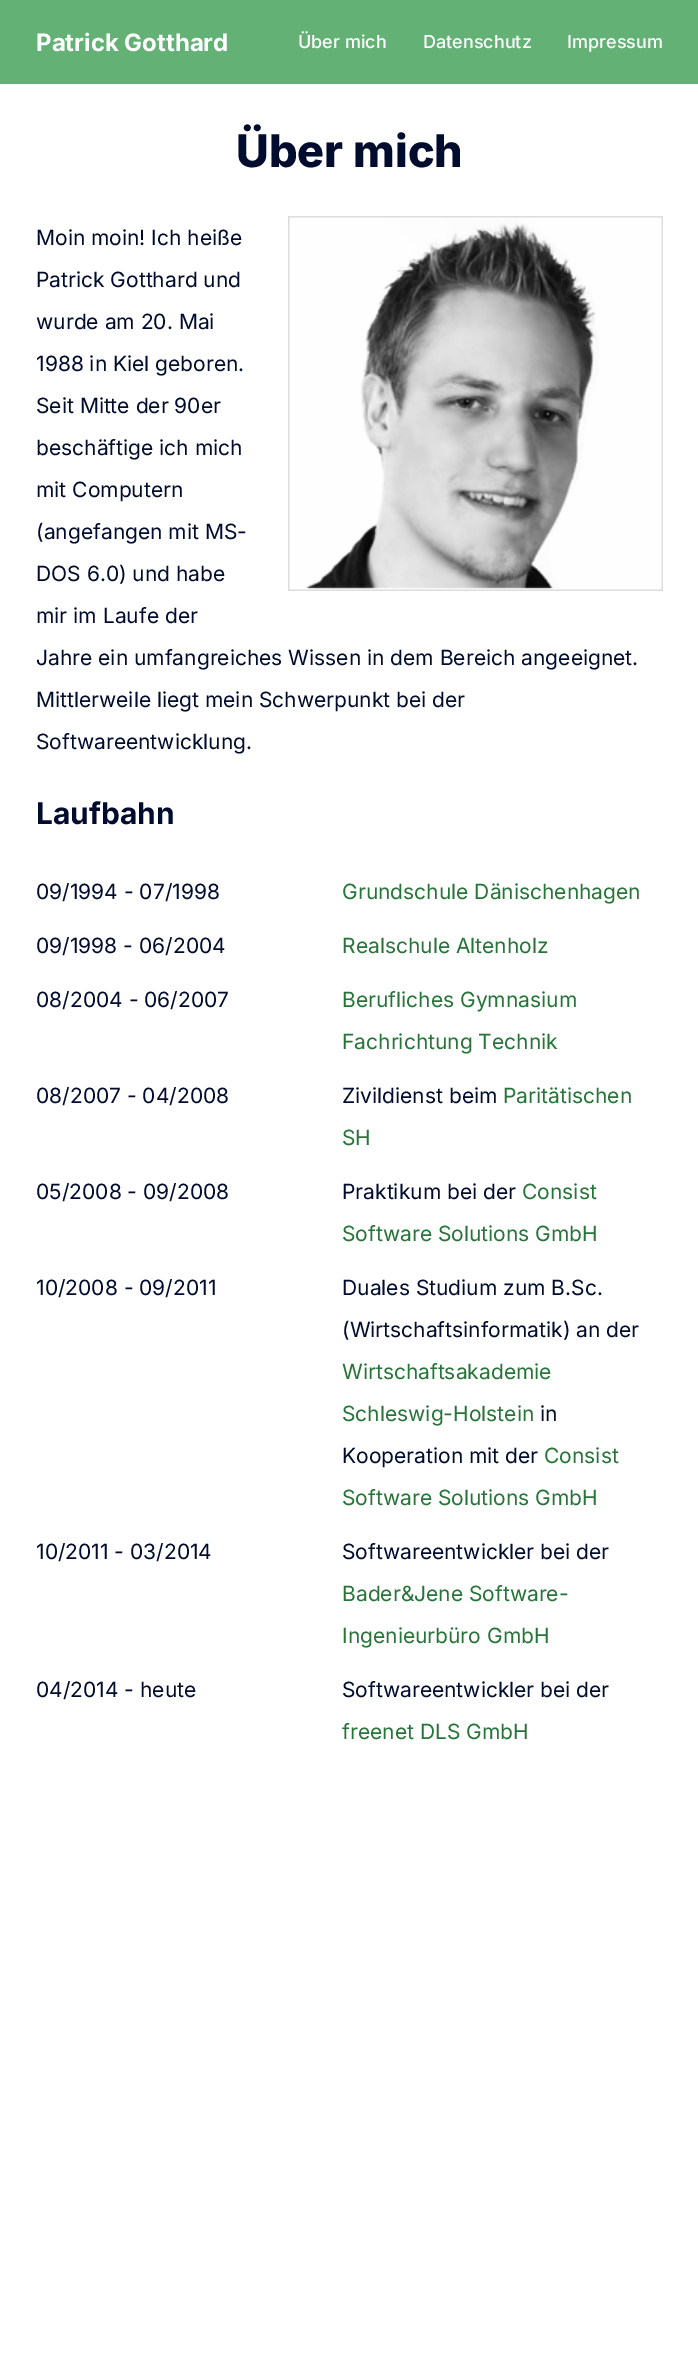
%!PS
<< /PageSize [698 2369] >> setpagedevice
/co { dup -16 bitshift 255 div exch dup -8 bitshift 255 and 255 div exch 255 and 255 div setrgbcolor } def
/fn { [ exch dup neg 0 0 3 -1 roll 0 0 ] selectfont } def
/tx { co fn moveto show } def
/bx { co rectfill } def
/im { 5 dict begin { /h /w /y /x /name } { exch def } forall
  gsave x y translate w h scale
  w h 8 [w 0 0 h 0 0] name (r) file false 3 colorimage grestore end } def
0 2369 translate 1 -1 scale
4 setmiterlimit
0 0 698 2369 16#FFFFFF bx
0 0 698 84 16#63B175 bx
(media/1.raw) 288 216 375 375 im
(Patrick Gotthard) 36 51 /Inter-Bold 24 16#FFFFFF tx
(Über mich) 298 48 /Inter-Medium 18 16#FFFFFF tx
(Datenschutz) 423 48 /Inter-Medium 18 16#FFFFFF tx
(Impressum) 567 48 /Inter-Medium 18 16#FFFFFF tx
(Über mich) 236 167 /Inter-ExtraBold 45 16#000C2D tx
(Moin moin! Ich heiße) 36 245 /Inter-Regular 21 16#000C2D tx
(Patrick Gotthard und) 36 287 /Inter-Regular 21 16#000C2D tx
(wurde am 20. Mai) 36 329 /Inter-Regular 21 16#000C2D tx
(1988 in Kiel geboren.) 36 371 /Inter-Regular 21 16#000C2D tx
(Seit Mitte der 90er) 36 413 /Inter-Regular 21 16#000C2D tx
(beschäftige ich mich) 36 455 /Inter-Regular 21 16#000C2D tx
(mit Computern) 36 497 /Inter-Regular 21 16#000C2D tx
(\(angefangen mit MS-) 36 539 /Inter-Regular 21 16#000C2D tx
(DOS 6.0\) und habe) 36 581 /Inter-Regular 21 16#000C2D tx
(mir im Laufe der) 36 623 /Inter-Regular 21 16#000C2D tx
(Jahre ein umfangreiches Wissen in dem Bereich angeeignet.) 36 665 /Inter-Regular 21 16#000C2D tx
(Mittlerweile liegt mein Schwerpunkt bei der) 36 707 /Inter-Regular 21 16#000C2D tx
(Softwareentwicklung.) 36 749 /Inter-Regular 21 16#000C2D tx
(Laufbahn) 36 824 /Inter-Bold 30 16#000C2D tx
(09/1994 - 07/1998) 36 899 /Inter-Regular 21 16#000C2D tx
(Grundschule Dänischenhagen) 342 899 /Inter-Regular 21 16#267438 tx
(09/1998 - 06/2004) 36 953 /Inter-Regular 21 16#000C2D tx
(Realschule Altenholz) 342 953 /Inter-Regular 21 16#267438 tx
(08/2004 - 06/2007) 36 1007 /Inter-Regular 21 16#000C2D tx
(Berufliches Gymnasium) 342 1007 /Inter-Regular 21 16#267438 tx
(Fachrichtung Technik) 342 1049 /Inter-Regular 21 16#267438 tx
(08/2007 - 04/2008) 36 1103 /Inter-Regular 21 16#000C2D tx
(Zivildienst beim) 342 1103 /Inter-Regular 21 16#000C2D tx
(Paritätischen) 503 1103 /Inter-Regular 21 16#267438 tx
(SH) 342 1145 /Inter-Regular 21 16#267438 tx
(05/2008 - 09/2008) 36 1199 /Inter-Regular 21 16#000C2D tx
(Praktikum bei der) 342 1199 /Inter-Regular 21 16#000C2D tx
(Consist) 522 1199 /Inter-Regular 21 16#267438 tx
(Software Solutions GmbH) 342 1241 /Inter-Regular 21 16#267438 tx
(10/2008 - 09/2011) 36 1295 /Inter-Regular 21 16#000C2D tx
(Duales Studium zum B.Sc.) 342 1295 /Inter-Regular 21 16#000C2D tx
(\(Wirtschaftsinformatik\) an der) 342 1337 /Inter-Regular 21 16#000C2D tx
(Wirtschaftsakademie) 342 1379 /Inter-Regular 21 16#267438 tx
(Schleswig-Holstein) 342 1421 /Inter-Regular 21 16#267438 tx
(in) 540 1421 /Inter-Regular 21 16#000C2D tx
(Kooperation mit der) 342 1463 /Inter-Regular 21 16#000C2D tx
(Consist) 544 1463 /Inter-Regular 21 16#267438 tx
(Software Solutions GmbH) 342 1505 /Inter-Regular 21 16#267438 tx
(10/2011 - 03/2014) 36 1559 /Inter-Regular 21 16#000C2D tx
(Softwareentwickler bei der) 342 1559 /Inter-Regular 21 16#000C2D tx
(Bader&Jene Software-) 342 1601 /Inter-Regular 21 16#267438 tx
(Ingenieurbüro GmbH) 342 1643 /Inter-Regular 21 16#267438 tx
(04/2014 - heute) 36 1697 /Inter-Regular 21 16#000C2D tx
(Softwareentwickler bei der) 342 1697 /Inter-Regular 21 16#000C2D tx
(freenet DLS GmbH) 342 1739 /Inter-Regular 21 16#267438 tx
showpage
